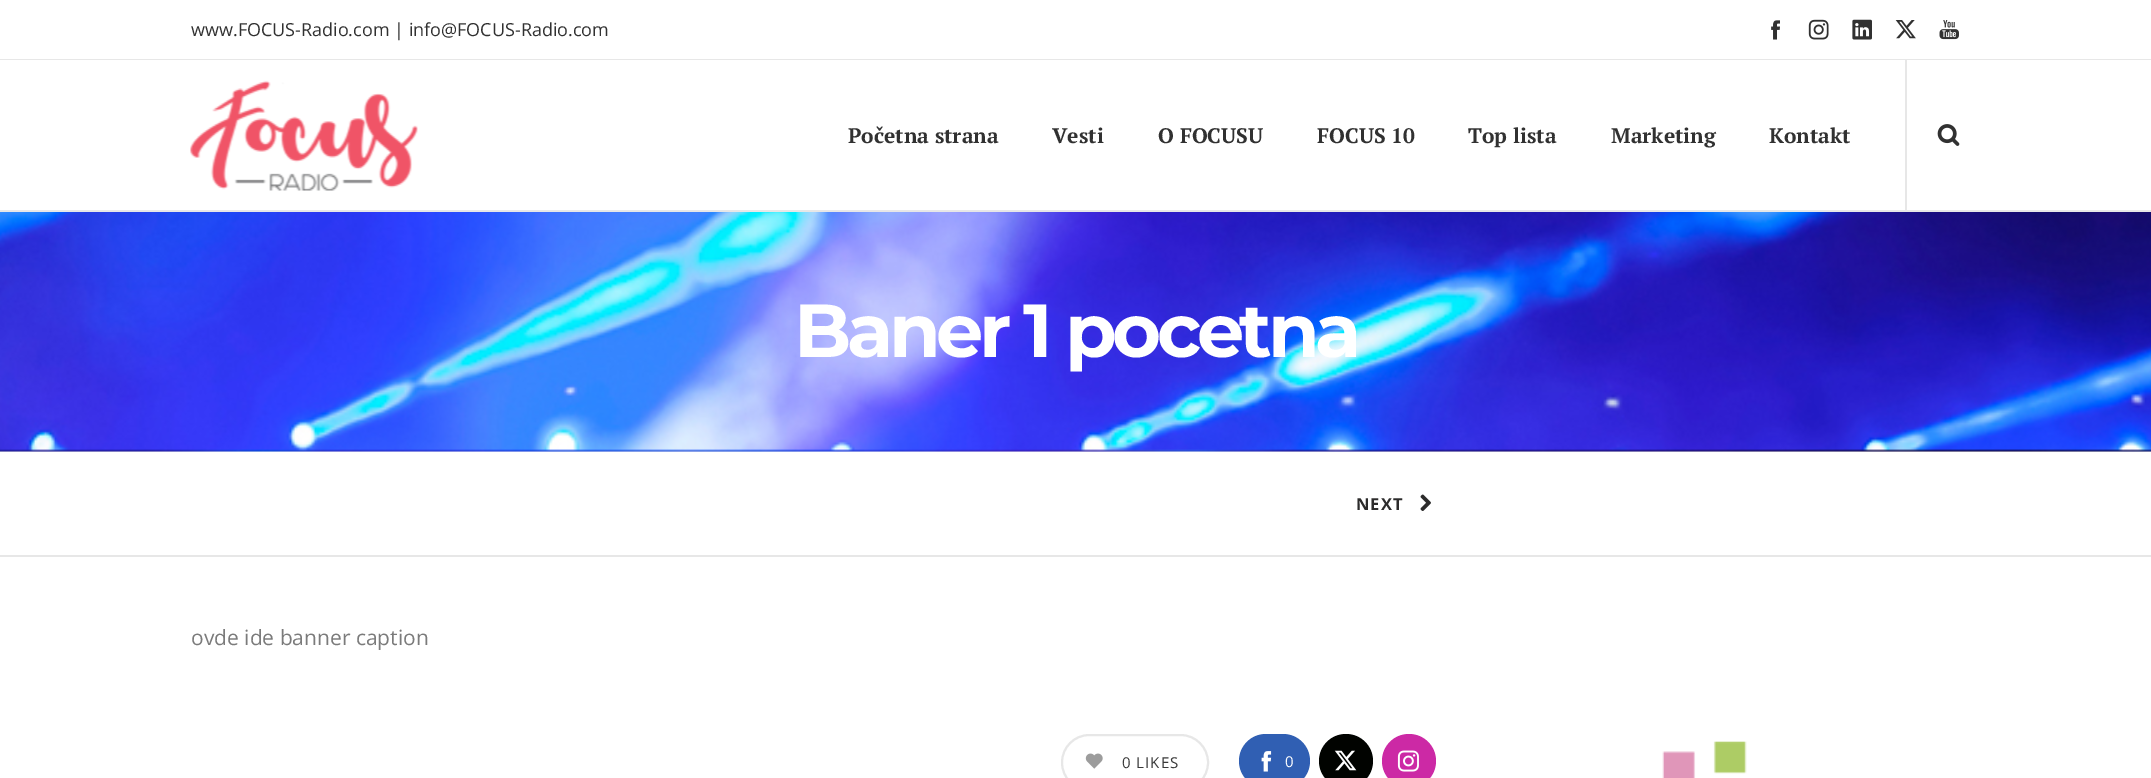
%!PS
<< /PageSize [2151 778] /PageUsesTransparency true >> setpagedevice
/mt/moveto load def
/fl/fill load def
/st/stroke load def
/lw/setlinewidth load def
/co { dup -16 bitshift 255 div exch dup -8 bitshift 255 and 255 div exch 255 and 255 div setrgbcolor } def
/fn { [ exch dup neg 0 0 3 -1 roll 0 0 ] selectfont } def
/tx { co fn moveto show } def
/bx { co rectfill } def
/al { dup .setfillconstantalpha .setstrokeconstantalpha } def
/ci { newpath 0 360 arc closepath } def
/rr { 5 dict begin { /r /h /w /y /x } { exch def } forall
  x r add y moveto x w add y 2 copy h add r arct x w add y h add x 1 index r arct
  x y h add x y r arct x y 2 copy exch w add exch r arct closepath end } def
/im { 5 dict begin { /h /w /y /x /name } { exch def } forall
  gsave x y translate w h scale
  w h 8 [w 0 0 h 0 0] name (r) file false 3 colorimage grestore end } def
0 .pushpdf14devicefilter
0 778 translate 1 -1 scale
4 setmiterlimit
0 0 2151 778 16#FFFFFF bx
0 210 2151 2 16#E7E7E7 bx
0 59 2151 1 16#E7E7E7 bx
(media/1.raw) 1771 20 9 20 im
(media/2.raw) 1808 19 21 21 im
(media/3.raw) 1852 19 20 21 im
(media/4.raw) 1895 20 21 19 im
(media/5.raw) 1939 20 20 20 im
(media/6.raw) 190 80 228 111 im
1905 60 2 150 16#E7E7E7 bx
(media/7.raw) 1937 124 23 22 im
(media/8.raw) 0 212 2151 240 im
0.1 al
0 450 2151 2 16#1B1B1B bx
1 al
(media/9.raw) 1420 494 11 17 im
0 555 2151 2 16#E7E7E7 bx
(media/10.raw) 1085 753 18 16 im
2 lw
1062 735 146 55 27.5 rr st
16#305FB3 co
1239 734 71 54 27 rr fl
(media/11.raw) 1261 751 11 21 im
16#010300 co
1346 761 27 ci fl
(media/12.raw) 1334 750 23 21 im
16#CC29A5 co
1409 761 27 ci fl
(media/13.raw) 1397 750 22 22 im
(media/14.raw) 1662 741 85 37 im
(www.FOCUS-Radio.com | info@FOCUS-Radio.com) 191 36 /OpenSans-Regular 18 16#313131 tx
(Početna strana) 848 143 /PTSerif-Bold 21 16#313131 tx
(Vesti) 1052 143 /PTSerif-Bold 21 16#313131 tx
(O FOCUSU) 1158 143 /PTSerif-Bold 21 16#313131 tx
(FOCUS 10) 1317 143 /PTSerif-Bold 21 16#313131 tx
(Top lista) 1468 143 /PTSerif-Bold 21 16#313131 tx
(Marketing) 1611 143 /PTSerif-Bold 21 16#313131 tx
(Kontakt) 1769 143 /PTSerif-Bold 21 16#313131 tx
/Montserrat-Bold 75 fn
16#FFFFFF co
794 357 mt -4.5 0 (Baner 1 pocetna) ashow
/OpenSans-Bold 16.5 fn
16#2C2B2B co
1356 510 mt 1 0 (NEXT) ashow
(ovde ide banner caption) 191 645 /OpenSans-Regular 21 16#7B7B7B tx
/OpenSans-Regular 15 fn
16#393939 co
1122 768 mt 1 0 (0 LIKES) ashow
16#FFFFFF co
1285 767 mt 1 0 (0) ashow
.poppdf14devicefilter showpage
